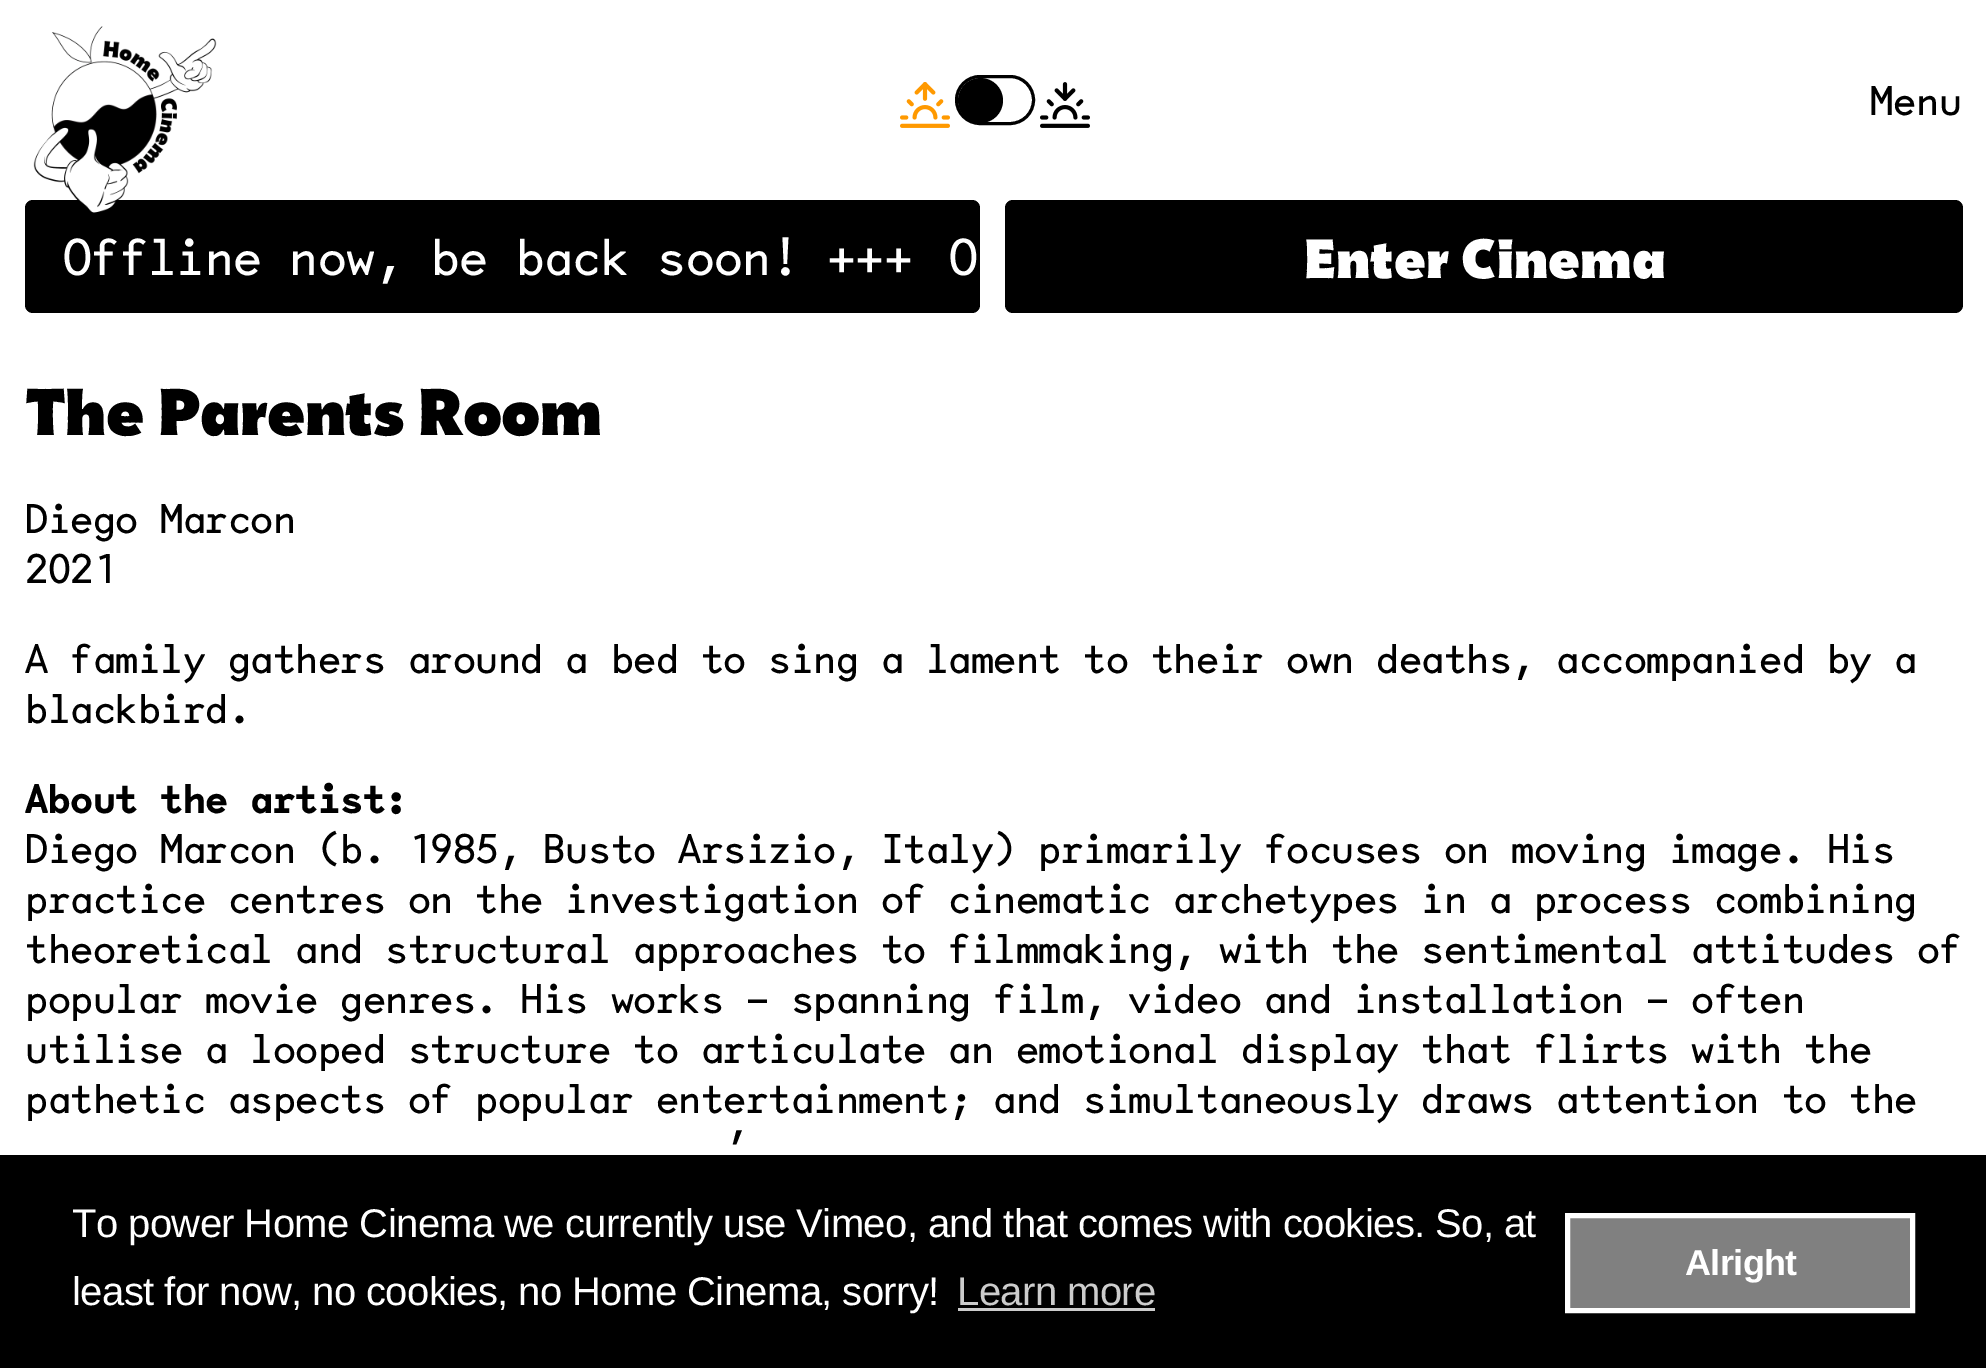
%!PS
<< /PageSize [1986 1368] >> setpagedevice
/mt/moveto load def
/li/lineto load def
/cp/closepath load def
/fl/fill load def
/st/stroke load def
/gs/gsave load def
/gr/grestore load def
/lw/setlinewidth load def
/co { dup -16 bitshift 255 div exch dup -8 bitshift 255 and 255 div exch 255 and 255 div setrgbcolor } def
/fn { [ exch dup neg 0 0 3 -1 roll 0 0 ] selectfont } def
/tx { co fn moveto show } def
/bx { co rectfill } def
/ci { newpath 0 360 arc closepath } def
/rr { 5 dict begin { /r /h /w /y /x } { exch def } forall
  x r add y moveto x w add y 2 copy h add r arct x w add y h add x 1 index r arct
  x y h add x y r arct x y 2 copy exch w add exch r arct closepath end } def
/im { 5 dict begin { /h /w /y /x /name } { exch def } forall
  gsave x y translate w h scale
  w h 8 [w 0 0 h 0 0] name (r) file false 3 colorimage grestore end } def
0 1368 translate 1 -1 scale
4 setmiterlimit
0 0 1986 1368 16#FFFFFF bx
16#000000 co
25 200 955 113 8 rr fl
(media/1.raw) 33 26 184 187 im
(media/2.raw) 900 82 50 46 im
3 lw
956.5 76.5 77 47 23.5 rr st
980.5 100.5 22.5 ci fl
(media/3.raw) 1040 82 50 46 im
1005 200 958 113 8 rr fl
0 1155 1986 213 16#000000 bx
958 1308 197 3 16#CCCCCC bx
16#808080 co
1567.5 1215.5 mt 1912.5 1215.5 li 1912.5 1310.5 li 1567.5 1310.5 li cp gs fl gr
16#FFFFFF co
5 lw
st
(Menu) 1870 115 /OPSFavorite-Medium 40 16#000000 tx
/OPSFavorite-Medium 50 fn
16#FFFFFF co
63 275 mt -.6 0 (Offline now, be back soon! +++) ashow
949 275 mt -.6 0 (O) ashow
(Enter Cinema) 1304 278 /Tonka-ExtraBold 50 16#FFFFFF tx
/Tonka-ExtraBold 60 fn
16#000000 co
25 435 mt -.6 0 (The Parents Room) ashow
/OPSFavorite-Medium 40 fn
25 533 mt -.6 0 (Diego Marcon) ashow
25 583 mt -.6 0 (2021) ashow
25 673 mt -.6 0 (A family gathers around a bed to sing a lament to their own deaths, accompanied by a) ashow
25 723 mt -.6 0 (blackbird.) ashow
/OPSFavorite-Bold 40 fn
25 813 mt -.6 0 (About the artist:) ashow
/OPSFavorite-Medium 40 fn
25 863 mt -.6 0 (Diego Marcon \(b. 1985, Busto Arsizio, Italy\) primarily focuses on moving image. His) ashow
25 913 mt -.6 0 (practice centres on the investigation of cinematic archetypes in a process combining) ashow
25 963 mt -.6 0 (theoretical and structural approaches to filmmaking, with the sentimental attitudes of) ashow
25 1013 mt -.6 0 (popular movie genres. His works – spanning film, video and installation – often) ashow
25 1063 mt -.6 0 (utilise a looped structure to articulate an emotional display that flirts with the) ashow
25 1113 mt -.6 0 (pathetic aspects of popular entertainment; and simultaneously draws attention to the) ashow
723 1163 mt -.6 0 (’) ashow
/LiberationSans-Regular 40 fn
16#FFFFFF co
72 1237 mt -.6 0 (To power Home Cinema we currently use Vimeo, and that comes with cookies. So, at) ashow
72 1305 mt -.6 0 (least for now, no cookies, no Home Cinema, sorry!) ashow
16#CCCCCC co
957 1305 mt -.6 0 (Learn more) ashow
/LiberationSans-Bold 36 fn
16#FFFFFF co
1685 1275 mt -.6 0 (Alright) ashow
showpage
